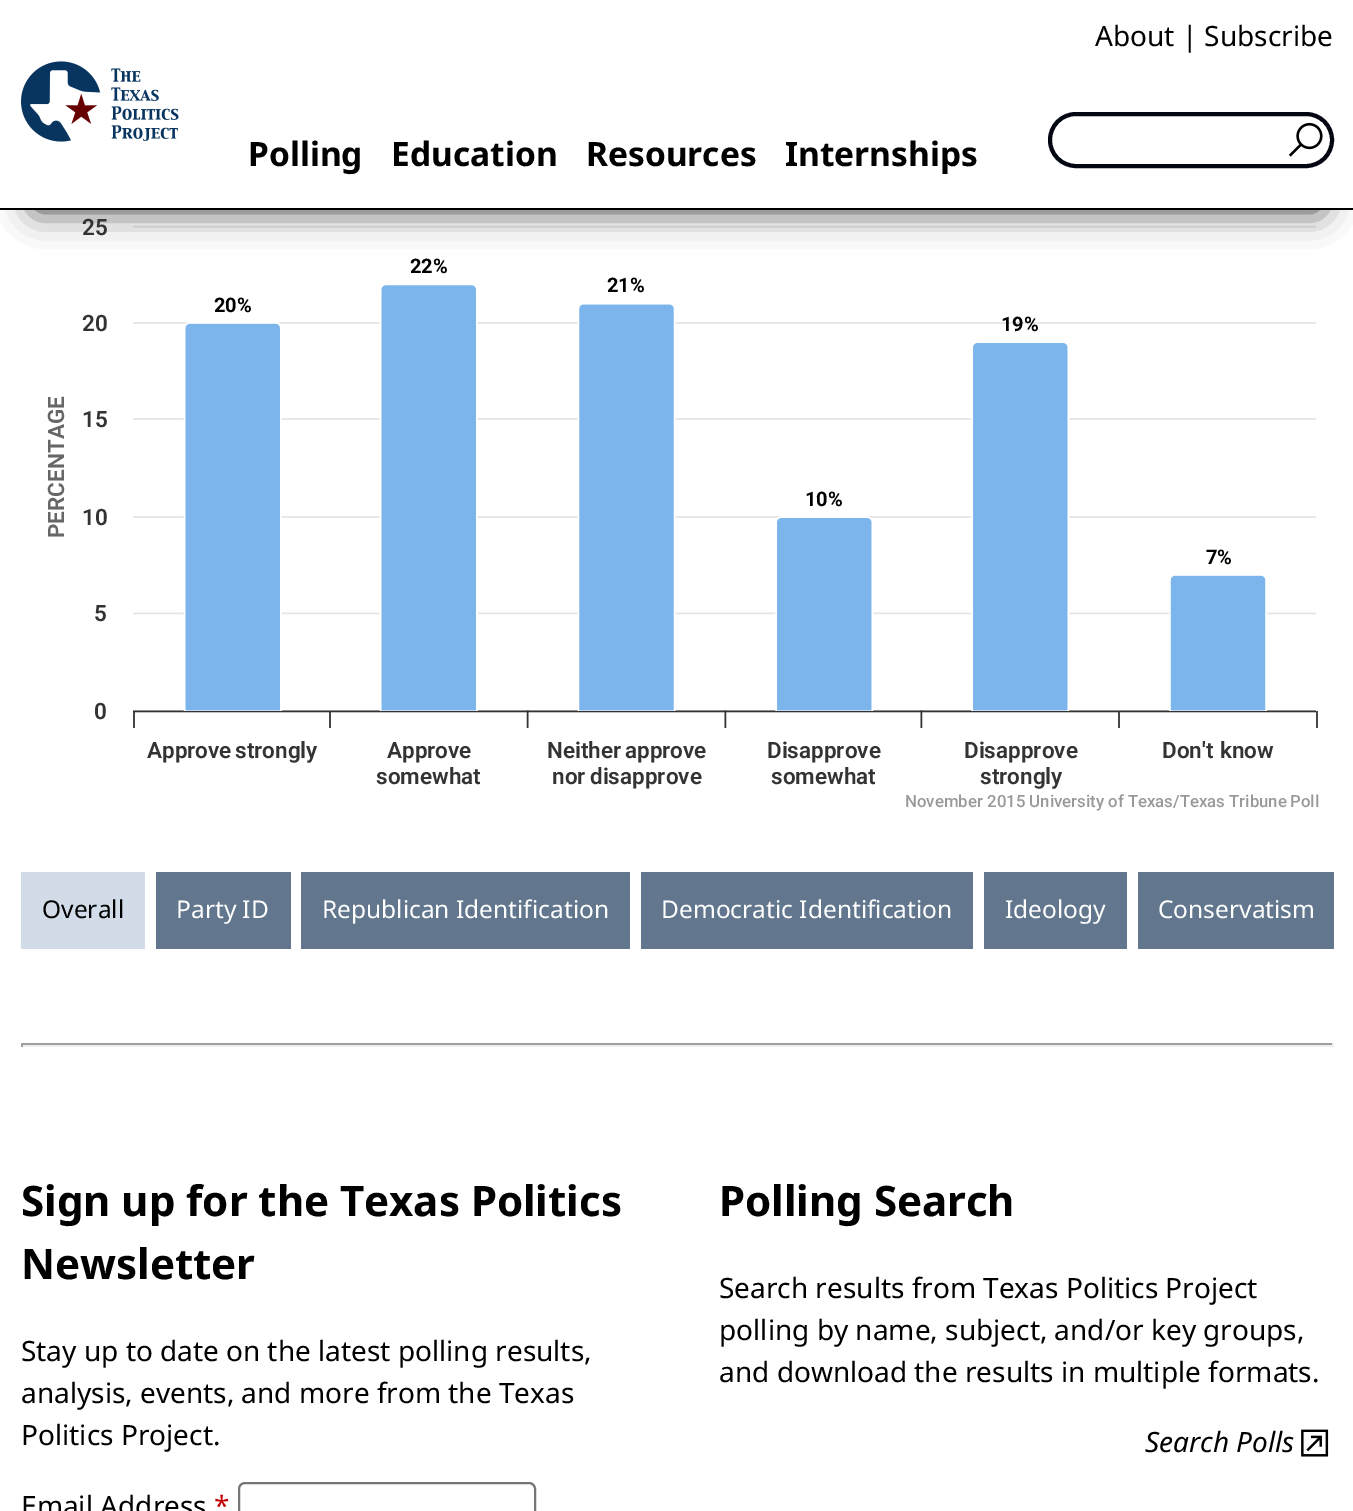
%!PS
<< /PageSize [1353 1511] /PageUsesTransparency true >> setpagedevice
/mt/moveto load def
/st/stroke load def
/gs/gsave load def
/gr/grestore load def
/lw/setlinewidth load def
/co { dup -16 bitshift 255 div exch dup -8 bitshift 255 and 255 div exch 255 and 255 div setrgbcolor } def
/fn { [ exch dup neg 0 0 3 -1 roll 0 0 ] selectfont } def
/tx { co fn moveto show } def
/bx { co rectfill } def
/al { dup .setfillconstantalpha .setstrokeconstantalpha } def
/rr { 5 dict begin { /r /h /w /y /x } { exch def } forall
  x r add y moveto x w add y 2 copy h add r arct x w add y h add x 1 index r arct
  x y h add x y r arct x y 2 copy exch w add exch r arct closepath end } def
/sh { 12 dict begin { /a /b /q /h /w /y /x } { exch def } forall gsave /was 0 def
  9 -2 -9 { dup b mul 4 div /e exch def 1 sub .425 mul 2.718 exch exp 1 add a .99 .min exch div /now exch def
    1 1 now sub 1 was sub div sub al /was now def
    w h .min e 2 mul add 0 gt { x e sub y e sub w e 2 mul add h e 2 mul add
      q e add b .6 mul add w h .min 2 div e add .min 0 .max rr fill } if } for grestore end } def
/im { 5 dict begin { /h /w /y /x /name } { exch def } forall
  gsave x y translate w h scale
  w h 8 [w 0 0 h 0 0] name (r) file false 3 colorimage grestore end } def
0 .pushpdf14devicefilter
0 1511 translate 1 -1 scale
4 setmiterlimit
0 0 1353 1511 16#FFFFFF bx
(media/3.raw) 133 210 1185 518 im
16#333333 co
35 70 1285 140 0 17.5 1 sh
0 31 1353 177 16#FFFFFF bx
0 208 1353 2 16#000000 bx
(media/1.raw) 21 61 158 81 im
16#030712 co
4 lw
1050 114 282 52 26 rr st
(media/2.raw) 1288 122 35 35 im
21 872 124 77 16#D1DCE8 bx
156 872 135 77 16#62778D bx
301 872 329 77 16#62778D bx
641 872 332 77 16#62778D bx
984 872 143 77 16#62778D bx
1138 872 196 77 16#62778D bx
21 1043 1313 2 16#9F9F9F bx
1332 1043 2 4 16#EEEEEE bx
21 1045 1313 2 16#EEEEEE bx
21 1043 2 4 16#9F9F9F bx
16#767676 co
2 lw
239 1483 296 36 6 rr st
(media/4.raw) 1301 1429 28 28 im
(About | Subscribe) 1095 46 /NotoSans-Regular 28 16#000000 tx
(Polling) 248 166 /NotoSans-Bold 33.5 16#000000 tx
(Education) 391 166 /NotoSans-Bold 33.5 16#000000 tx
(Resources) 586 166 /NotoSans-Bold 33.5 16#000000 tx
(Internships) 785 166 /NotoSans-Bold 33.5 16#000000 tx
(25) 82 235 /Roboto-SemiBold 22.5 16#333333 tx
(22%) 410 273 /Roboto-Bold 20 16#000000 tx
(21%) 607 292 /Roboto-Bold 20 16#000000 tx
(20%) 214 312 /Roboto-Bold 20 16#000000 tx
(20) 82 331 /Roboto-SemiBold 22.5 16#333333 tx
(19%) 1001 331 /Roboto-Bold 20 16#000000 tx
/Roboto-SemiBold 22.5 fn
16#666666 co
gs 64 538 translate -90 rotate 0 0 mt (PERCENTAGE) show gr
(15) 82 427 /Roboto-SemiBold 22.5 16#333333 tx
(10%) 805 506 /Roboto-Bold 20 16#000000 tx
(10) 82 525 /Roboto-SemiBold 22.5 16#333333 tx
(7%) 1206 564 /Roboto-Bold 20 16#000000 tx
(5) 94 621 /Roboto-SemiBold 22.5 16#333333 tx
(0) 94 719 /Roboto-SemiBold 22.5 16#333333 tx
147 758 mt -2 0 32 (Approve strongly) widthshow
(Approve) 387 758 /Roboto-SemiBold 22.5 16#333333 tx
547 758 mt -2 0 32 (Neither approve) widthshow
(Disapprove) 767 758 /Roboto-SemiBold 22.5 16#333333 tx
(Disapprove) 964 758 /Roboto-SemiBold 22.5 16#333333 tx
1162 758 mt 1 0 32 (Don't know) widthshow
(somewhat) 376 784 /Roboto-SemiBold 22.5 16#333333 tx
552 784 mt -1 0 32 (nor disapprove) widthshow
(somewhat) 771 784 /Roboto-SemiBold 22.5 16#333333 tx
(strongly) 980 784 /Roboto-SemiBold 22.5 16#333333 tx
(November 2015 University of Texas/Texas Tribune) 905 807 /Roboto-Medium 16.8 16#999999 tx
(Poll) 1290 807 /Roboto-Medium 16.8 16#999999 tx
(Overall) 42 918 /NotoSans-Regular 24.5 16#000000 tx
(Party ID) 176 918 /NotoSans-Regular 24.5 16#FFFFFF tx
(Republican Identification) 322 918 /NotoSans-Regular 24.5 16#FFFFFF tx
(Democratic Identification) 661 918 /NotoSans-Regular 24.5 16#FFFFFF tx
(Ideology) 1005 918 /NotoSans-Regular 24.5 16#FFFFFF tx
(Conservatism) 1158 918 /NotoSans-Regular 24.5 16#FFFFFF tx
(Sign up for the Texas Politics) 21 1216 /NotoSans-Bold 42 16#000000 tx
(Newsletter) 21 1279 /NotoSans-Bold 42 16#000000 tx
(Stay up to date on the latest polling results,) 21 1361 /NotoSans-Regular 28 16#000000 tx
(analysis, events, and more from the Texas) 21 1403 /NotoSans-Regular 28 16#000000 tx
(Politics Project.) 21 1445 /NotoSans-Regular 28 16#000000 tx
(Email Address) 21 1516 /NotoSans-Regular 28 16#000000 tx
(*) 214 1516 /NotoSans-Regular 28 16#C10007 tx
(Polling Search) 719 1216 /NotoSans-Bold 42 16#000000 tx
(Search results from Texas Politics Project) 719 1298 /NotoSans-Regular 28 16#000000 tx
(polling by name, subject, and/or key groups,) 719 1340 /NotoSans-Regular 28 16#000000 tx
(and download the results in multiple formats.) 719 1382 /NotoSans-Regular 28 16#000000 tx
(Search Polls) 1145 1452 /NotoSans-Italic 28 16#000000 tx
.poppdf14devicefilter showpage
